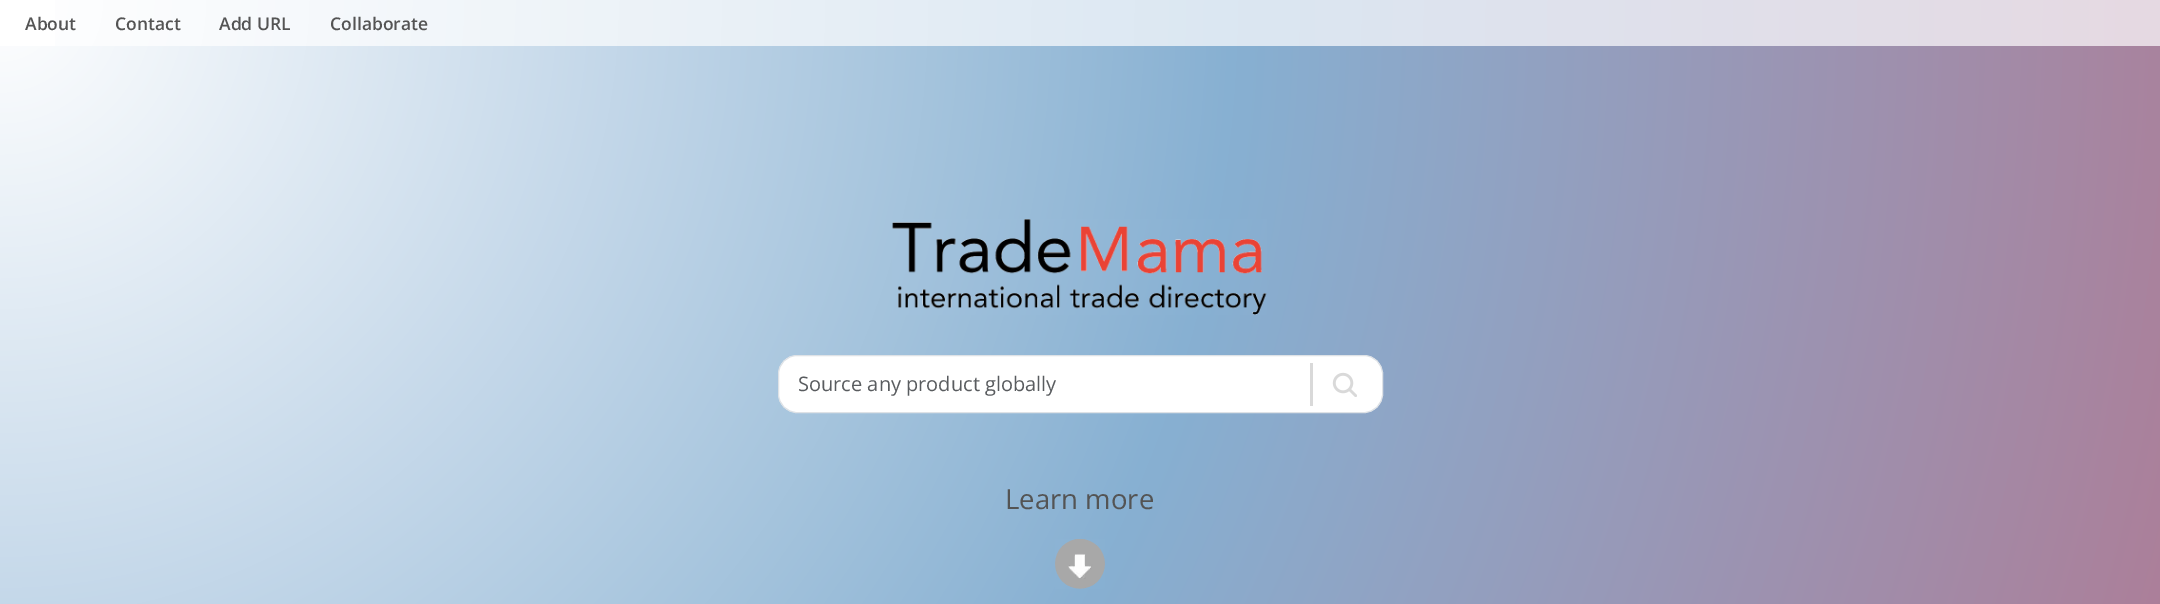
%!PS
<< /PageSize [2160 604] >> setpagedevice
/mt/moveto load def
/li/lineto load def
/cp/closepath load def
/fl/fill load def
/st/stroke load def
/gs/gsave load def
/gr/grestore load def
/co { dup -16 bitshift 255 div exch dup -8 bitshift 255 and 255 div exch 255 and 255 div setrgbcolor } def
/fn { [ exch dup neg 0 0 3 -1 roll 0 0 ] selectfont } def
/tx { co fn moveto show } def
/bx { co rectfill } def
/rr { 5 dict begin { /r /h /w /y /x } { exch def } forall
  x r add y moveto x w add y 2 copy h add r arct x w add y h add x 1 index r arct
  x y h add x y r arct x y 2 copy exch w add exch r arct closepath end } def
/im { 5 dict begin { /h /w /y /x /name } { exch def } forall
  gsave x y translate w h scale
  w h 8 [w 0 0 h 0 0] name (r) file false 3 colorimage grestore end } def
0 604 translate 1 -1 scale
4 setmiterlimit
0 0 2160 604 16#FFFFFF bx
gs 0 46 mt 2160 46 li 2160 604 li 0 604 li cp clip newpath 0 0 translate 2476 2476 scale
<< /ShadingType 3 /ColorSpace /DeviceRGB /Coords [0 0 0 0 0 1] /Extend [true true] /Function << /FunctionType 3 /Domain [0 1] /Functions [<< /FunctionType 2 /Domain [0 1] /C0 [1 1 1] /C1 [.529 .69 .824] /N 1 >> << /FunctionType 2 /Domain [0 1] /C0 [.529 .69 .824] /C1 [.706 .455 .553] /N 1 >>] /Bounds [.5] /Encode [0 1 0 1] >> >> shfill gr
gs 55 0 mt 2160 0 li 2160 46 li 55 46 li cp clip newpath 0 0 translate 2476 2476 scale
<< /ShadingType 3 /ColorSpace /DeviceRGB /Coords [0 0 0 0 0 1] /Extend [true true] /Function << /FunctionType 3 /Domain [0 1] /Functions [<< /FunctionType 2 /Domain [0 1] /C0 [1 1 1] /C1 [.859 .906 .949] /N 1 >> << /FunctionType 2 /Domain [0 1] /C0 [.859 .906 .949] /C1 [.914 .835 .867] /N 1 >>] /Bounds [.5] /Encode [0 1 0 1] >> >> shfill gr
(media/1.raw) 892 219 375 96 im
778.5 355.5 604 57 18.5 rr gs fl gr
16#DEE2E6 co
st
1310 363 3 43 16#D9D9D9 bx
(media/2.raw) 1332 372 25 25 im
(media/3.raw) 1055 539 50 50 im
(About) 25 30 /OpenSans-SemiBold 17.5 16#545454 tx
(Contact) 115 30 /OpenSans-SemiBold 17.5 16#545454 tx
(Add URL) 219 30 /OpenSans-SemiBold 17.5 16#545454 tx
(Collaborate) 330 30 /OpenSans-SemiBold 17.5 16#545454 tx
(Source any product globally) 798 391 /OpenSans-Regular 20 16#595C5F tx
(Learn more) 1005 509 /OpenSans-Regular 27.5 16#545454 tx
showpage
